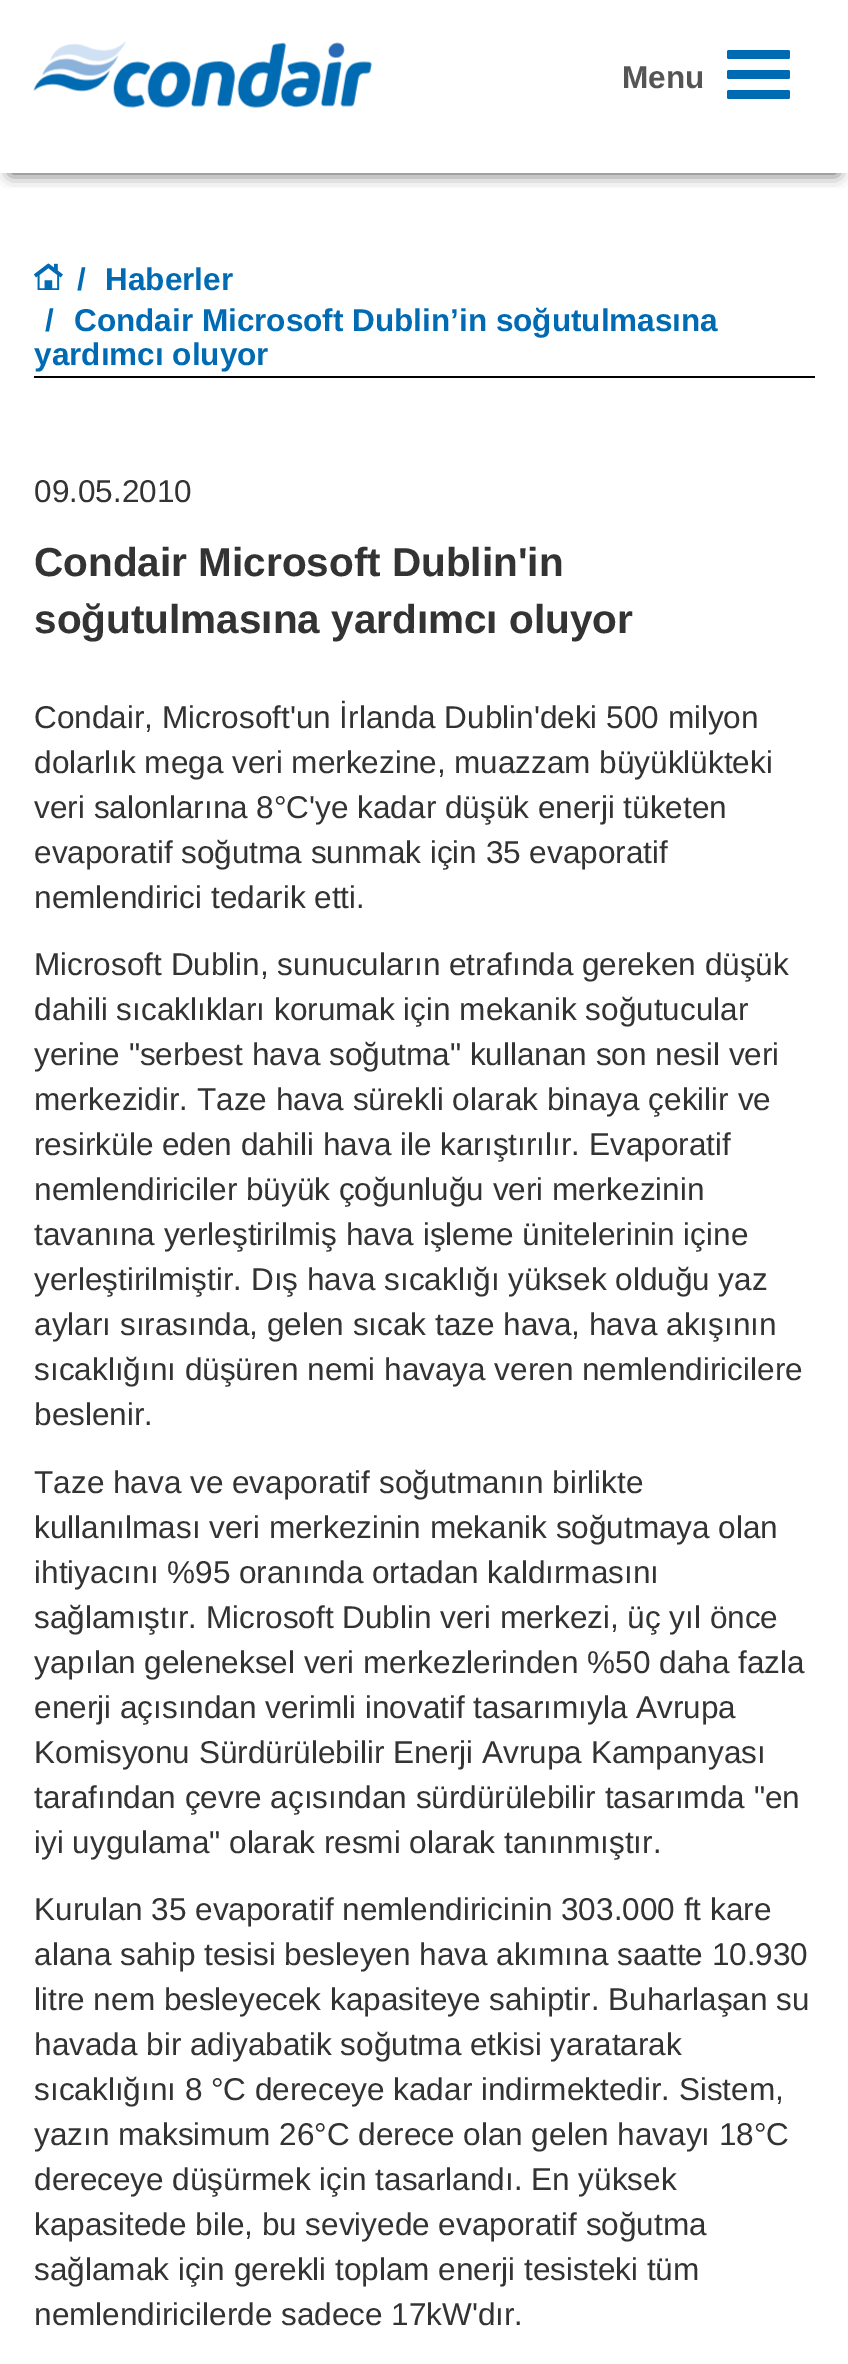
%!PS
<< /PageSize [848 2364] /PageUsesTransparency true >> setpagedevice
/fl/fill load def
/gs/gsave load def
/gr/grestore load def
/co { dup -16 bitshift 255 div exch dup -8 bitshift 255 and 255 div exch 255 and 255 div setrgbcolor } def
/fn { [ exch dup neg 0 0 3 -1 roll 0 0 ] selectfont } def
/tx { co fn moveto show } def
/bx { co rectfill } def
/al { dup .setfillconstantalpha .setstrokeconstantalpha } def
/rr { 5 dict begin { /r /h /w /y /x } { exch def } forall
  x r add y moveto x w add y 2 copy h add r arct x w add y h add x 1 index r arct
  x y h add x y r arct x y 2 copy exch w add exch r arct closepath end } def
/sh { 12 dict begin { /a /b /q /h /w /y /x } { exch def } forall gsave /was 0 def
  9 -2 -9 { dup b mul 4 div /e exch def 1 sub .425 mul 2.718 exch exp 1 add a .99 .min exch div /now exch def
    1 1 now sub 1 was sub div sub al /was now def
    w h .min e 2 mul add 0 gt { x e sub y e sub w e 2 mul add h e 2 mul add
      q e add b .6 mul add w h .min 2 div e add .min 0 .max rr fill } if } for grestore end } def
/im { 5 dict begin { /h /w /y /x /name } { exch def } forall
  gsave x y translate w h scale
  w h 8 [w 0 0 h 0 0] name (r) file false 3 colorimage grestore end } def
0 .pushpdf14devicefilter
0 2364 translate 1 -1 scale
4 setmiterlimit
0 0 848 2364 16#FFFFFF bx
gs
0 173 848 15 rectclip
16#000000 co
11 23 826 150 0 8 .75 sh
gr
(media/1.raw) 33 41 339 67 im
16#006AB3 co
727 50 63 9 2 rr fl
727 70 63 9 2 rr fl
727 90 63 9 2 rr fl
34 376 781 2 16#000000 bx
(media/2.raw) 34 263 29 27 im
(Menu) 622 88 /LiberationSans-Bold 31.5 16#555555 tx
(/) 77 290 /LiberationSans-Bold 31.5 16#006AB3 tx
(Haberler) 105 290 /LiberationSans-Bold 31.5 16#006AB3 tx
(/) 45 331 /LiberationSans-Bold 31.5 16#006AB3 tx
(Condair Microsoft Dublin’in soğutulmasına) 74 331 /LiberationSans-Bold 31.5 16#006AB3 tx
(yardımcı oluyor) 34 365 /LiberationSans-Bold 31.5 16#006AB3 tx
(09.05.2010) 34 502 /LiberationSans-Regular 31.5 16#333333 tx
(Condair Microsoft Dublin'in) 34 576 /LiberationSans-Bold 40.5 16#333333 tx
(soğutulmasına yardımcı oluyor) 34 633 /LiberationSans-Bold 40.5 16#333333 tx
(Condair, Microsoft'un İrlanda Dublin'deki 500 milyon) 34 728 /LiberationSans-Regular 31.5 16#333333 tx
(dolarlık mega veri merkezine, muazzam büyüklükteki) 34 773 /LiberationSans-Regular 31.5 16#333333 tx
(veri salonlarına 8°C'ye kadar düşük enerji tüketen) 34 818 /LiberationSans-Regular 31.5 16#333333 tx
(evaporatif soğutma sunmak için 35 evaporatif) 34 863 /LiberationSans-Regular 31.5 16#333333 tx
(nemlendirici tedarik etti.) 34 908 /LiberationSans-Regular 31.5 16#333333 tx
(Microsoft Dublin, sunucuların etrafında gereken düşük) 34 975 /LiberationSans-Regular 31.5 16#333333 tx
(dahili sıcaklıkları korumak için mekanik soğutucular) 34 1020 /LiberationSans-Regular 31.5 16#333333 tx
(yerine "serbest hava soğutma" kullanan son nesil veri) 34 1065 /LiberationSans-Regular 31.5 16#333333 tx
(merkezidir. Taze hava sürekli olarak binaya çekilir ve) 34 1110 /LiberationSans-Regular 31.5 16#333333 tx
(resirküle eden dahili hava ile karıştırılır. Evaporatif) 34 1155 /LiberationSans-Regular 31.5 16#333333 tx
(nemlendiriciler büyük çoğunluğu veri merkezinin) 34 1200 /LiberationSans-Regular 31.5 16#333333 tx
(tavanına yerleştirilmiş hava işleme ünitelerinin içine) 34 1245 /LiberationSans-Regular 31.5 16#333333 tx
(yerleştirilmiştir. Dış hava sıcaklığı yüksek olduğu yaz) 34 1290 /LiberationSans-Regular 31.5 16#333333 tx
(ayları sırasında, gelen sıcak taze hava, hava akışının) 34 1335 /LiberationSans-Regular 31.5 16#333333 tx
(sıcaklığını düşüren nemi havaya veren nemlendiricilere) 34 1380 /LiberationSans-Regular 31.5 16#333333 tx
(beslenir.) 34 1425 /LiberationSans-Regular 31.5 16#333333 tx
(Taze hava ve evaporatif soğutmanın birlikte) 34 1493 /LiberationSans-Regular 31.5 16#333333 tx
(kullanılması veri merkezinin mekanik soğutmaya olan) 34 1538 /LiberationSans-Regular 31.5 16#333333 tx
(ihtiyacını %95 oranında ortadan kaldırmasını) 34 1583 /LiberationSans-Regular 31.5 16#333333 tx
(sağlamıştır. Microsoft Dublin veri merkezi, üç yıl önce) 34 1628 /LiberationSans-Regular 31.5 16#333333 tx
(yapılan geleneksel veri merkezlerinden %50 daha fazla) 34 1673 /LiberationSans-Regular 31.5 16#333333 tx
(enerji açısından verimli inovatif tasarımıyla Avrupa) 34 1718 /LiberationSans-Regular 31.5 16#333333 tx
(Komisyonu Sürdürülebilir Enerji Avrupa Kampanyası) 34 1763 /LiberationSans-Regular 31.5 16#333333 tx
(tarafından çevre açısından sürdürülebilir tasarımda "en) 34 1808 /LiberationSans-Regular 31.5 16#333333 tx
(iyi uygulama" olarak resmi olarak tanınmıştır.) 34 1853 /LiberationSans-Regular 31.5 16#333333 tx
(Kurulan 35 evaporatif nemlendiricinin 303.000 ft kare) 34 1920 /LiberationSans-Regular 31.5 16#333333 tx
(alana sahip tesisi besleyen hava akımına saatte 10.930) 34 1965 /LiberationSans-Regular 31.5 16#333333 tx
(litre nem besleyecek kapasiteye sahiptir. Buharlaşan su) 34 2010 /LiberationSans-Regular 31.5 16#333333 tx
(havada bir adiyabatik soğutma etkisi yaratarak) 34 2055 /LiberationSans-Regular 31.5 16#333333 tx
(sıcaklığını 8 °C dereceye kadar indirmektedir. Sistem,) 34 2100 /LiberationSans-Regular 31.5 16#333333 tx
(yazın maksimum 26°C derece olan gelen havayı 18°C) 34 2145 /LiberationSans-Regular 31.5 16#333333 tx
(dereceye düşürmek için tasarlandı. En yüksek) 34 2190 /LiberationSans-Regular 31.5 16#333333 tx
(kapasitede bile, bu seviyede evaporatif soğutma) 34 2235 /LiberationSans-Regular 31.5 16#333333 tx
(sağlamak için gerekli toplam enerji tesisteki tüm) 34 2280 /LiberationSans-Regular 31.5 16#333333 tx
(nemlendiricilerde sadece 17kW'dır.) 34 2325 /LiberationSans-Regular 31.5 16#333333 tx
.poppdf14devicefilter showpage
